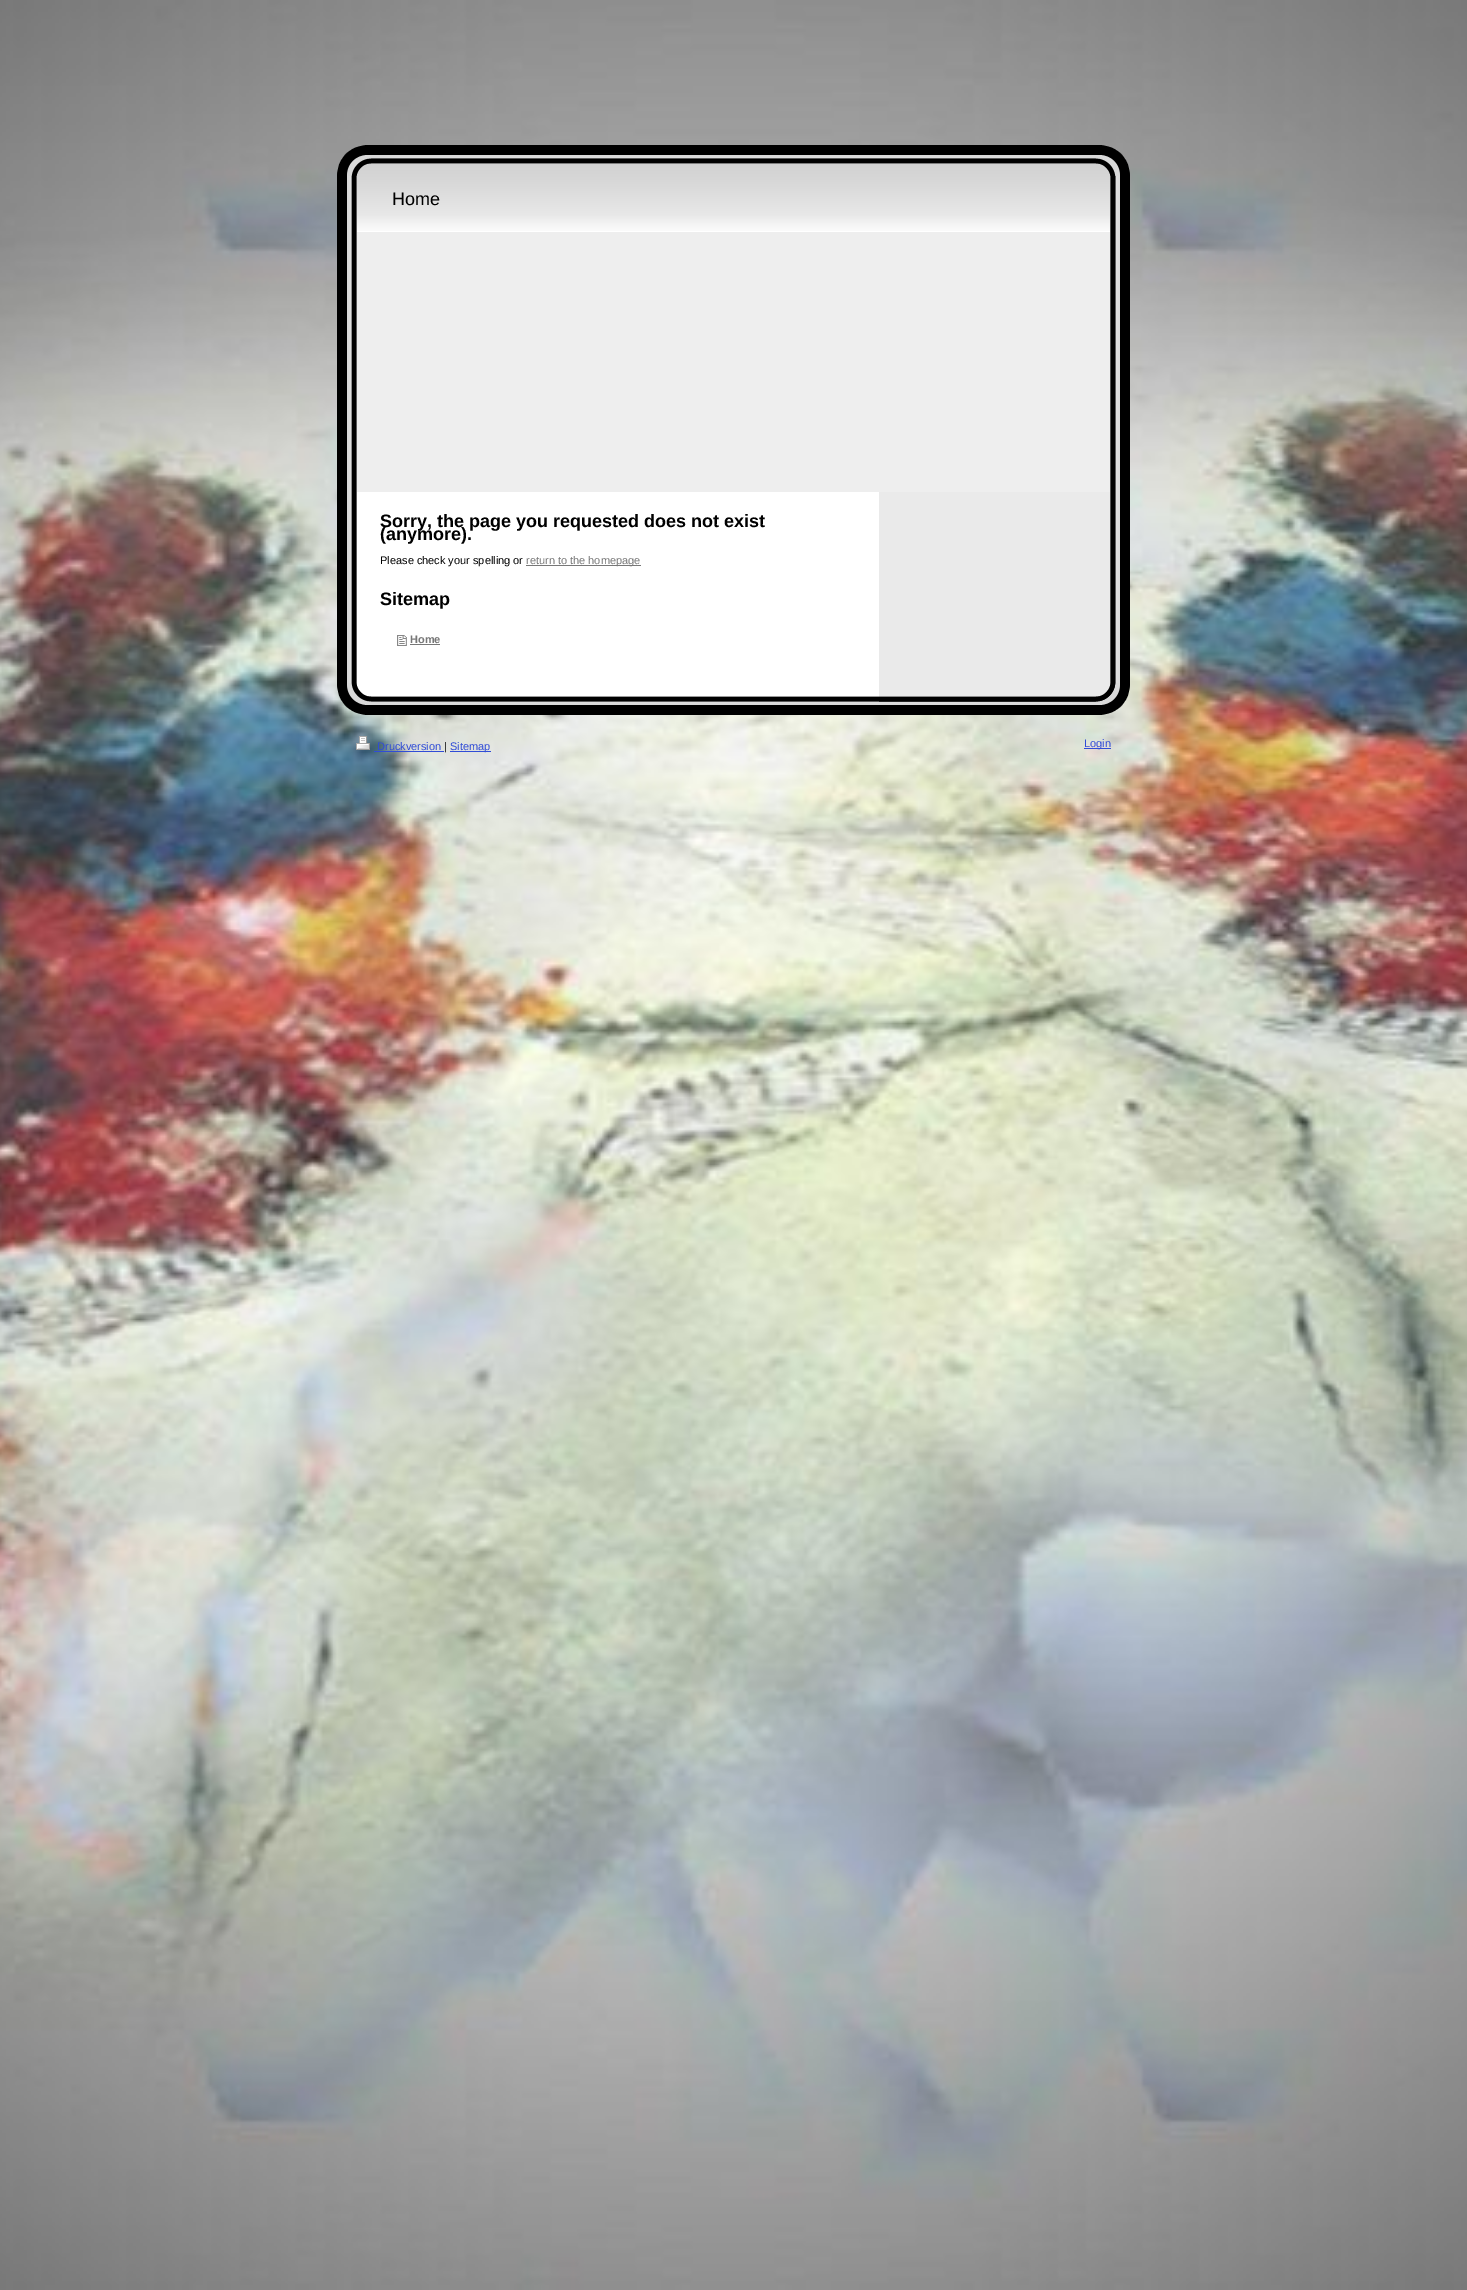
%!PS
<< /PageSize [1467 2290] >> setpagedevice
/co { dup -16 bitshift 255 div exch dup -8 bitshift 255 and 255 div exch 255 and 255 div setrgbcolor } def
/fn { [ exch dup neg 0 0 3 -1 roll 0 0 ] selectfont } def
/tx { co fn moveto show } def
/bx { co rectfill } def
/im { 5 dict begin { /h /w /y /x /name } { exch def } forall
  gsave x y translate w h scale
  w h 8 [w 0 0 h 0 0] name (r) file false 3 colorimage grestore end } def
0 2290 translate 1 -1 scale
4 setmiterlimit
0 0 1467 2290 16#FFFFFF bx
(media/1.raw) 0 0 1467 2290 im
(media/2.raw) 337 145 793 31 im
(media/3.raw) 337 176 793 507 im
879 231 231 1 16#FFFFFF bx
(media/4.raw) 357 176 753 55 im
357 232 753 260 16#EEEEEE bx
526 565 115 1 16#777777 bx
(media/5.raw) 397 635 10 11 im
410 644 30 1 16#777777 bx
(media/6.raw) 337 683 793 32 im
(media/7.raw) 356 736 14 14 im
374 751 70 1 16#304CD7 bx
450 751 41 1 16#304CD7 bx
1084 748 27 1 16#304CD7 bx
(Home) 392 205 /LiberationSans-Regular 18 16#000000 tx
(Sorry, the page you requested does not exist) 380 527 /LiberationSans-Bold 18 16#000000 tx
(\(anymore\).) 380 540 /LiberationSans-Bold 18 16#000000 tx
(Please check your spelling or) 380 564 /LiberationSans-Regular 11 16#000000 tx
(return to the homepage) 526 564 /LiberationSans-Regular 11 16#777777 tx
(Sitemap) 380 605 /LiberationSans-Bold 18 16#000000 tx
(Home) 410 643 /LiberationSans-Bold 11 16#777777 tx
(Druckversion) 377 750 /LiberationSans-Regular 11 16#304CD7 tx
(|) 444 750 /LiberationSans-Regular 11 16#000000 tx
(Sitemap) 450 750 /LiberationSans-Regular 11 16#304CD7 tx
(Login) 1084 747 /LiberationSans-Regular 11 16#304CD7 tx
showpage
